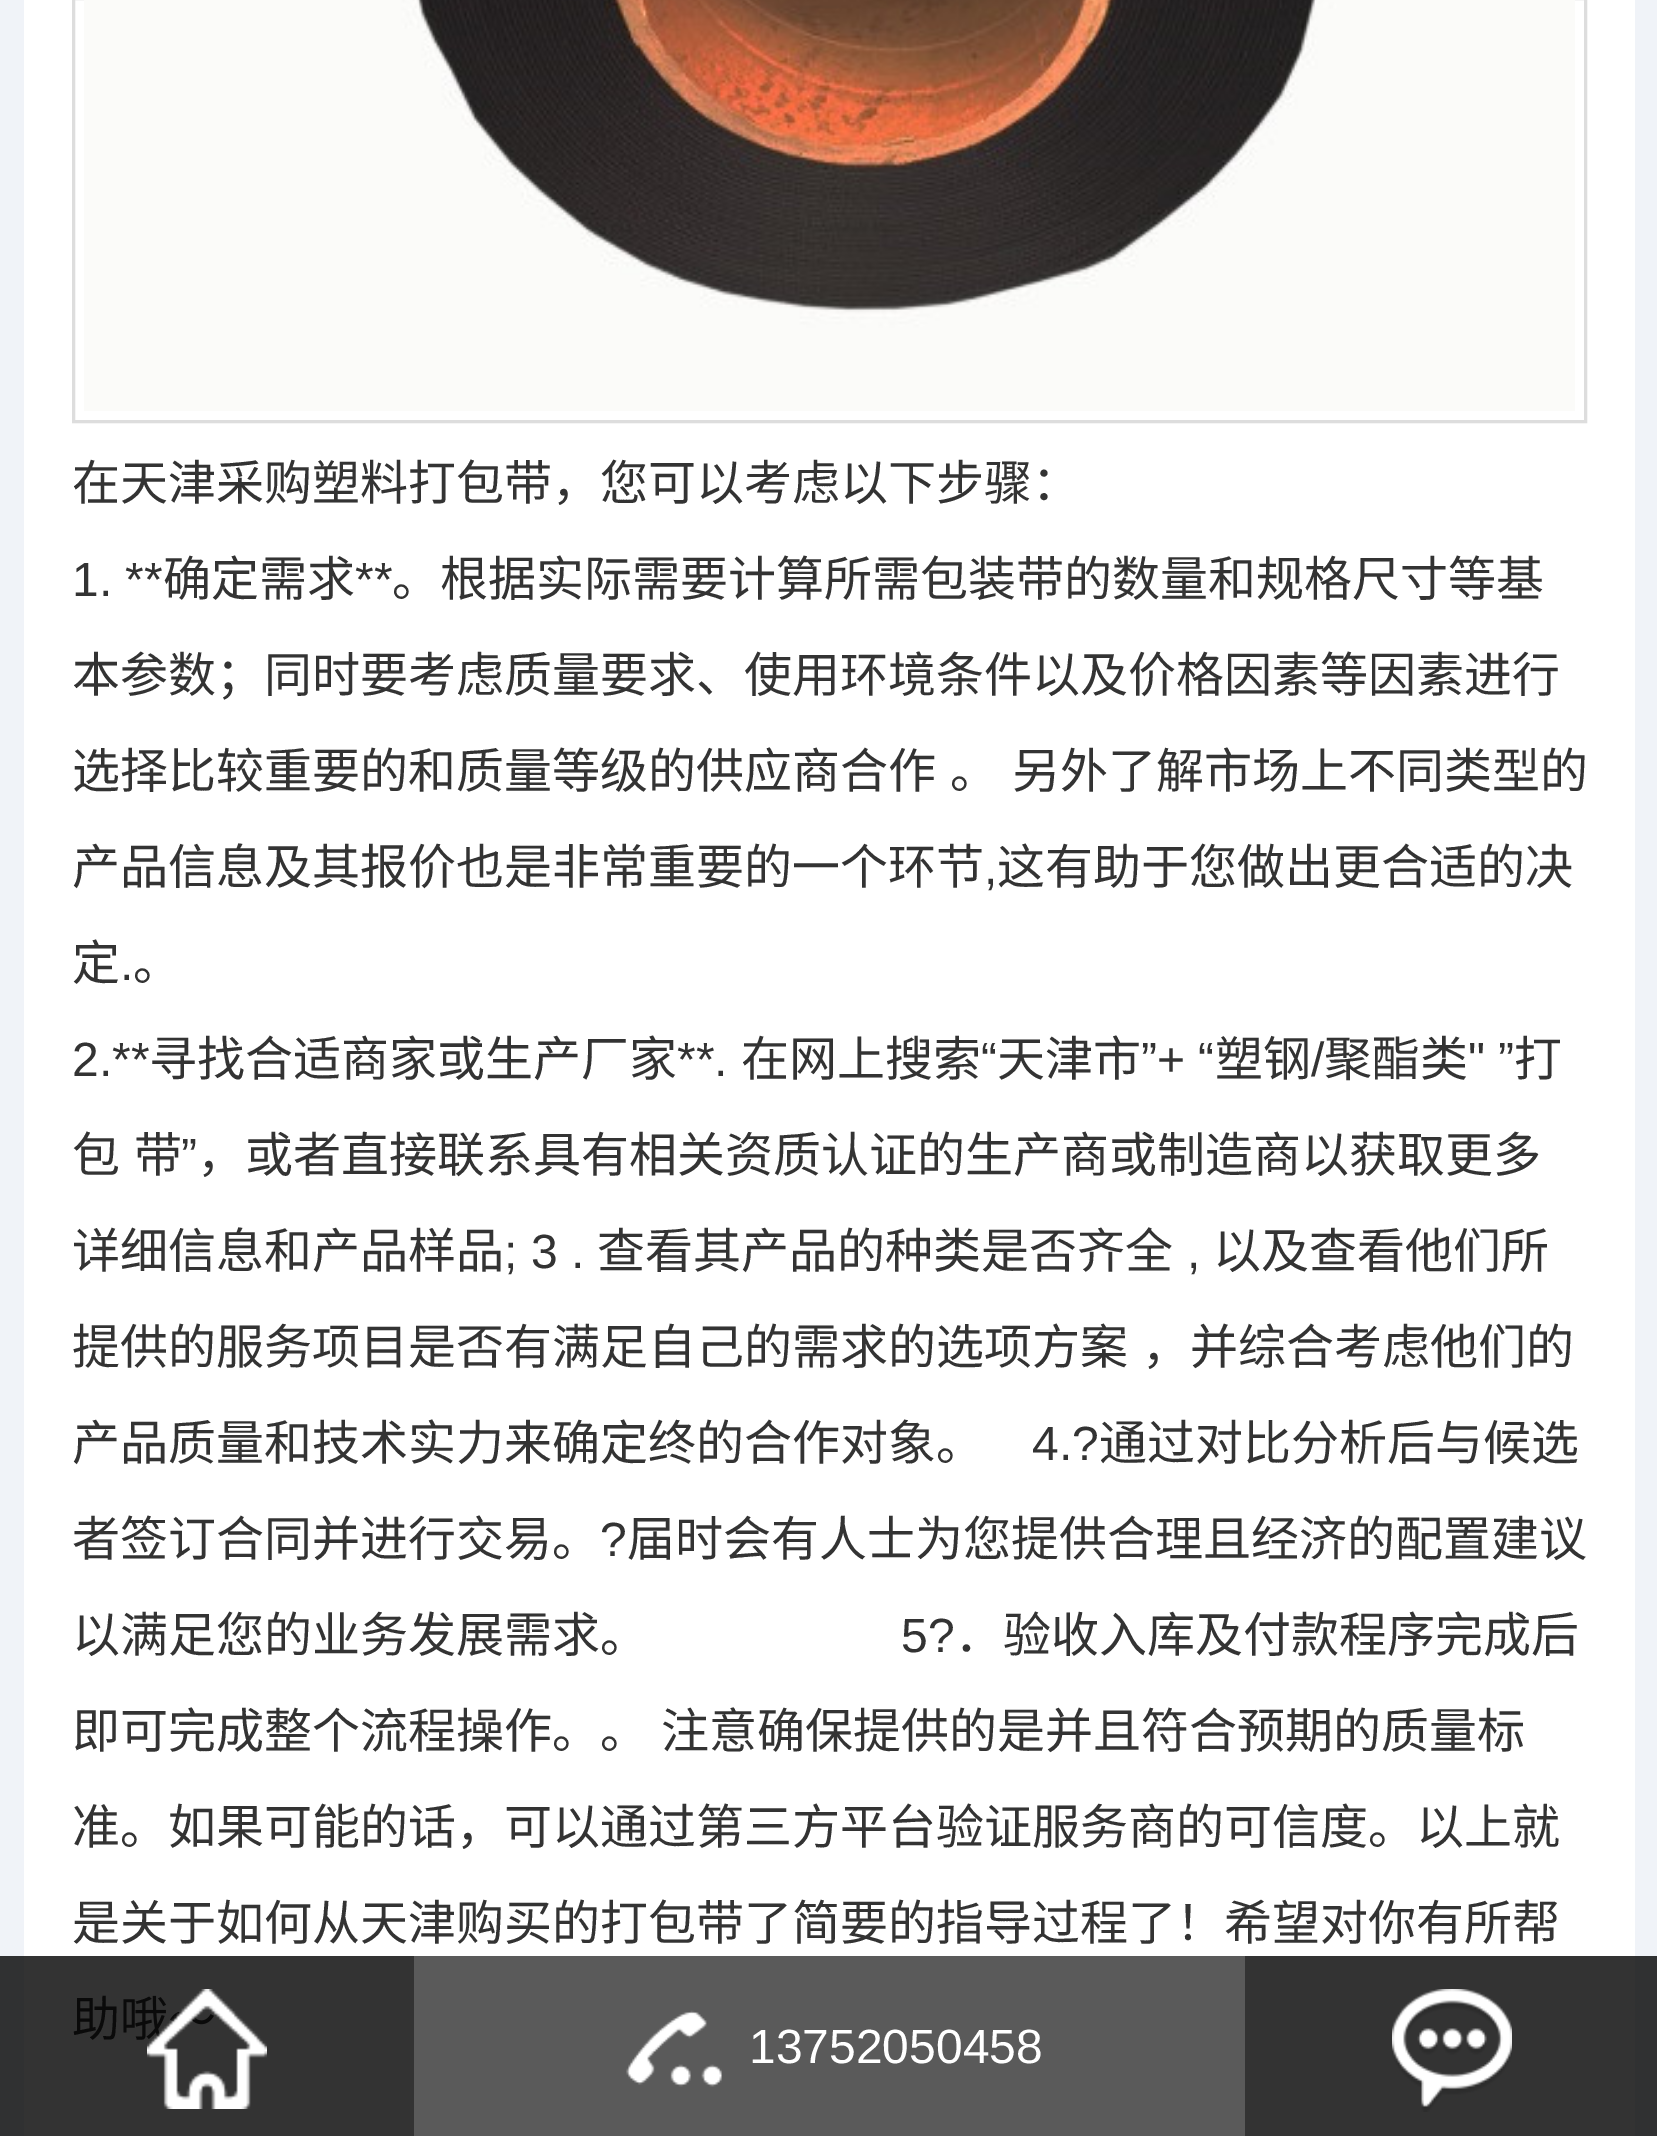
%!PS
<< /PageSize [1657 2136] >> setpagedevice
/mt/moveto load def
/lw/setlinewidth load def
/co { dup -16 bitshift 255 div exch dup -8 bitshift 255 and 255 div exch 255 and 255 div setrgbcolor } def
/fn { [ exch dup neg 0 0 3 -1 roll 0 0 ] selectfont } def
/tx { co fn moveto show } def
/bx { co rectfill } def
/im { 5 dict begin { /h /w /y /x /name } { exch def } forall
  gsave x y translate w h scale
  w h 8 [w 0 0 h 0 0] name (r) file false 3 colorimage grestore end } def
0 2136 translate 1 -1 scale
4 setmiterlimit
0 0 1657 2136 16#F0F3F8 bx
0 1956 1657 180 16#303132 bx
24 0 1611 1956 16#FFFFFF bx
24 1956 1611 180 16#333333 bx
16#DDDDDD co
3 lw
73.5 -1.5 1512 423 rectstroke
(media/1.raw) 84 0 1491 411 im
414 1956 831 180 16#5A5A5A bx
(media/3.raw) 626 2010 96 77 im
(media/4.raw) 1392 1989 120 123 im
(在天津采购塑料打包带，您可以考虑以下步骤：) 72 500 /NotoSansCJKSC-Regular 48 16#333333 tx
(1. **) 72 596 /LiberationSans-Regular 48 16#333333 tx
(确定需求) 163 596 /NotoSansCJKSC-Regular 48 16#333333 tx
(**) 355 596 /LiberationSans-Regular 48 16#333333 tx
(。根据实际需要计算所需包装带的数量和规格尺寸等基) 392 596 /NotoSansCJKSC-Regular 48 16#333333 tx
(本参数；同时要考虑质量要求、使用环境条件以及价格因素等因素进行) 72 692 /NotoSansCJKSC-Regular 48 16#333333 tx
72 788 mt 3 0 32 (选择比较重要的和质量等级的供应商合作 。 另外了解市场上不同类型的) widthshow
(产品信息及其报价也是非常重要的一个环节) 72 884 /NotoSansCJKSC-Regular 48 16#333333 tx
(,) 984 884 /LiberationSans-Regular 48 16#333333 tx
(这有助于您做出更合适的决) 997 884 /NotoSansCJKSC-Regular 48 16#333333 tx
(定) 72 980 /NotoSansCJKSC-Regular 48 16#333333 tx
(.) 120 980 /LiberationSans-Regular 48 16#333333 tx
(。) 133 980 /NotoSansCJKSC-Regular 48 16#333333 tx
(2.**) 72 1076 /LiberationSans-Regular 48 16#333333 tx
(寻找合适商家或生产厂家) 149 1076 /NotoSansCJKSC-Regular 48 16#333333 tx
(**.) 677 1076 /LiberationSans-Regular 48 16#333333 tx
(在网上搜索) 741 1076 /NotoSansCJKSC-Regular 48 16#333333 tx
(“) 981 1076 /LiberationSans-Regular 48 16#333333 tx
(天津市) 997 1076 /NotoSansCJKSC-Regular 48 16#333333 tx
(”+ “) 1141 1076 /LiberationSans-Regular 48 16#333333 tx
(塑钢) 1215 1076 /NotoSansCJKSC-Regular 48 16#333333 tx
(/) 1311 1076 /LiberationSans-Regular 48 16#333333 tx
(聚酯类) 1324 1076 /NotoSansCJKSC-Regular 48 16#333333 tx
(" ”) 1468 1076 /LiberationSans-Regular 48 16#333333 tx
(打) 1514 1076 /NotoSansCJKSC-Regular 48 16#333333 tx
72 1172 mt 3 0 32 (包 带) widthshow
(”) 181 1172 /LiberationSans-Regular 48 16#333333 tx
(，或者直接联系具有相关资质认证的生产商或制造商以获取更多) 197 1172 /NotoSansCJKSC-Regular 48 16#333333 tx
(详细信息和产品样品) 72 1268 /NotoSansCJKSC-Regular 48 16#333333 tx
(; 3 .) 504 1268 /LiberationSans-Regular 48 16#333333 tx
(查看其产品的种类是否齐全) 597 1268 /NotoSansCJKSC-Regular 48 16#333333 tx
(,) 1187 1268 /LiberationSans-Regular 48 16#333333 tx
(以及查看他们所) 1213 1268 /NotoSansCJKSC-Regular 48 16#333333 tx
72 1364 mt 3 0 32 (提供的服务项目是否有满足自己的需求的选项方案 ，并综合考虑他们的) widthshow
(产品质量和技术实力来确定终的合作对象。) 72 1460 /NotoSansCJKSC-Regular 48 16#333333 tx
(4.?) 1032 1460 /LiberationSans-Regular 48 16#333333 tx
(通过对比分析后与候选) 1099 1460 /NotoSansCJKSC-Regular 48 16#333333 tx
(者签订合同并进行交易。) 72 1556 /NotoSansCJKSC-Regular 48 16#333333 tx
(?) 600 1556 /LiberationSans-Regular 48 16#333333 tx
(届时会有人士为您提供合理且经济的配置建议) 627 1556 /NotoSansCJKSC-Regular 48 16#333333 tx
(以满足您的业务发展需求。) 72 1652 /NotoSansCJKSC-Regular 48 16#333333 tx
(5?) 901 1652 /LiberationSans-Regular 48 16#333333 tx
(．验收入库及付款程序完成后) 955 1652 /NotoSansCJKSC-Regular 48 16#333333 tx
(即可完成整个流程操作。。) 72 1748 /NotoSansCJKSC-Regular 48 16#333333 tx
(注意确保提供的是并且符合预期的质量标) 661 1748 /NotoSansCJKSC-Regular 48 16#333333 tx
(准。如果可能的话，可以通过第三方平台验证服务商的可信度。以上就) 72 1844 /NotoSansCJKSC-Regular 48 16#333333 tx
(是关于如何从天津购买的打包带了简要的指导过程了！希望对你有所帮) 72 1940 /NotoSansCJKSC-Regular 48 16#333333 tx
(助哦～) 72 2036 /NotoSansCJKSC-Regular 48 16#0A0A0A tx
(media/2.raw) 147 1989 120 120 im
(13752050458) 749 2063 /LiberationSans-Regular 48 16#FFFFFF tx
showpage
